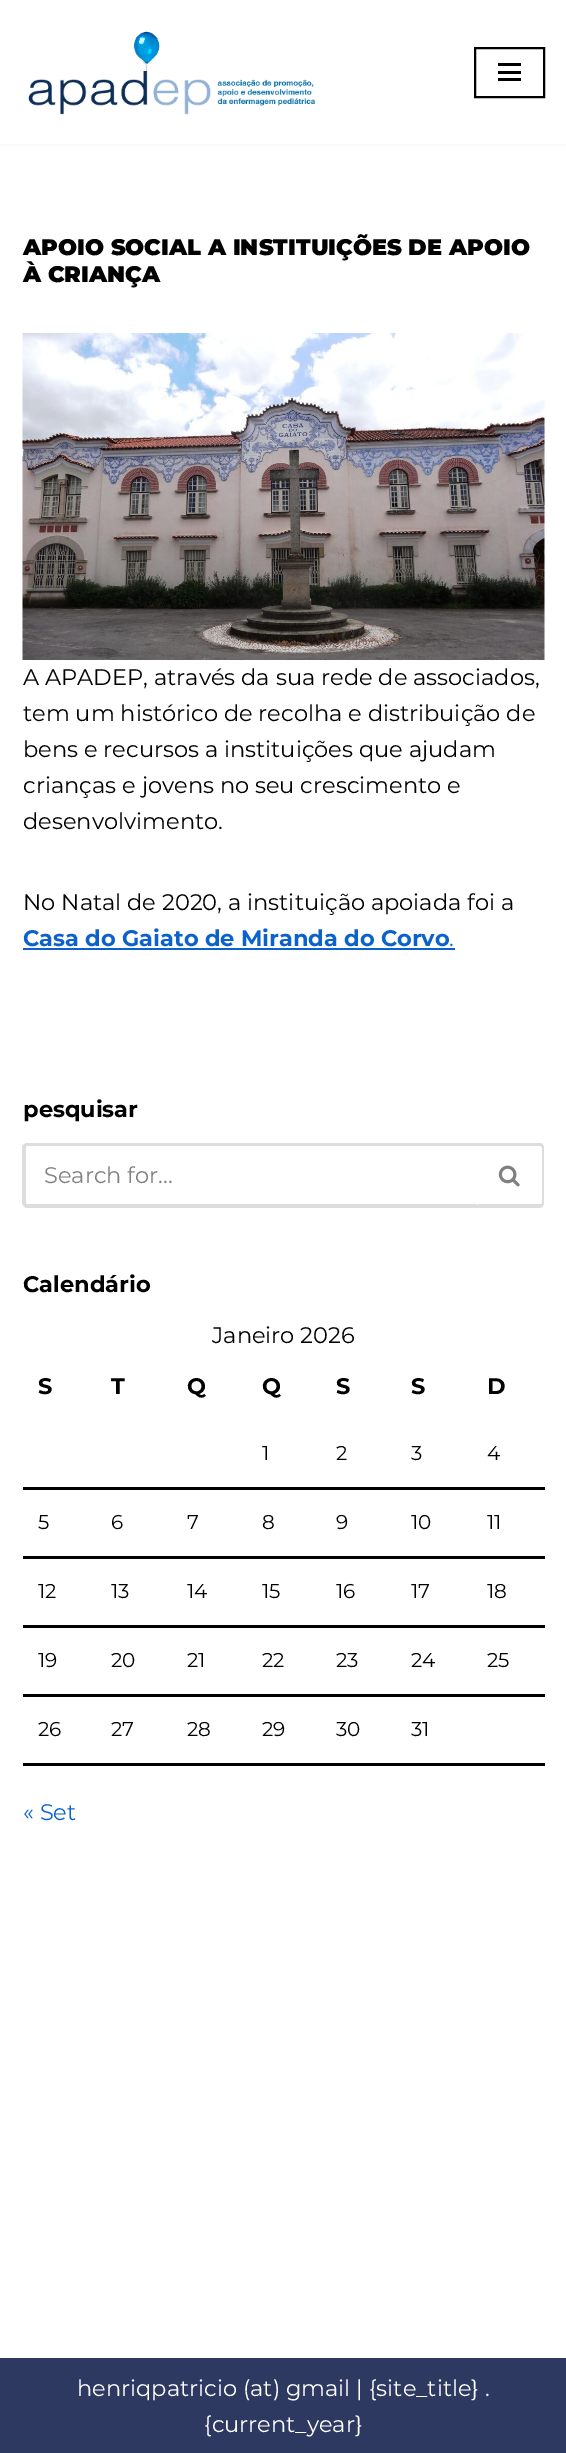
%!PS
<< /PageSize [566 2453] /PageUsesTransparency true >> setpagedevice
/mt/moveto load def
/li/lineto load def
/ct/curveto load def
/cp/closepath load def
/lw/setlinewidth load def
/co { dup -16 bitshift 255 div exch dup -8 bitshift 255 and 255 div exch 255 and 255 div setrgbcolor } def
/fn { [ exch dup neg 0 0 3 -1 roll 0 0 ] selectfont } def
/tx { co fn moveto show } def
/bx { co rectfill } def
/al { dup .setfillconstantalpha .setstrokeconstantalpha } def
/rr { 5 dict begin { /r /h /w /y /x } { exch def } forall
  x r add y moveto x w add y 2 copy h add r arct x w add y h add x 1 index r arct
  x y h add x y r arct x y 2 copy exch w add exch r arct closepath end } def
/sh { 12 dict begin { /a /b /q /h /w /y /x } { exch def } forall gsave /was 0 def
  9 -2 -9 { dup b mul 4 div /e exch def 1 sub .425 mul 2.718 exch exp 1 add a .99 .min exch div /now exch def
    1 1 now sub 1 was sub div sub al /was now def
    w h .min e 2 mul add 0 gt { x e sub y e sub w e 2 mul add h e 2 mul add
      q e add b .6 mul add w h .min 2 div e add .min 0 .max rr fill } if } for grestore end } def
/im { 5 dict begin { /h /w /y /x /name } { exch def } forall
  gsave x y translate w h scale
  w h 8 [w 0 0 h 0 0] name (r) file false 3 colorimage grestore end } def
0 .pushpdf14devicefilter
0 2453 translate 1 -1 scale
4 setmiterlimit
0 0 566 2453 16#FFFFFF bx
16#000000 co
0 -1 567 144 0 2 .1 sh
0 0 566 144 16#FFFFFF bx
(media/1.raw) 28 31 288 84 im
16#000000 co
2 lw
475 48 69 49 rectstroke
498 63 23 3 16#000000 bx
498 71 23 3 16#000000 bx
498 78 23 3 16#000000 bx
(media/2.raw) 22 333 523 327 im
23 948 432 2 16#0B62CD bx
16#DDDDDD co
27 1143 mt 477 1143 li 477 1208 li 27 1208 li 25 1208 22 1205 22 1203 ct 22 1148 li 22 1145 25 1143 27 1143 ct cp 27 1146 mt 477 1146 li 477 1204 li 27 1204 li 26 1204 26 1204 26 1203 ct 26 1148 li 26 1147 26 1146 27 1146 ct cp eofill
477 1143 mt 540 1143 li 542 1143 544 1145 544 1148 ct 544 1203 li 544 1205 542 1208 540 1208 ct 477 1208 li cp 477 1146 mt 540 1146 li 541 1146 542 1147 542 1148 ct 542 1203 li 542 1204 541 1204 540 1204 ct 477 1204 li cp eofill
(media/3.raw) 498 1165 22 22 im
477 1204 1 1 16#FFFFFF bx
23 1487 522 3 16#000000 bx
23 1556 522 3 16#000000 bx
23 1625 522 3 16#000000 bx
23 1694 522 3 16#000000 bx
23 1763 522 3 16#000000 bx
0 2358 566 95 16#2D3961 bx
(APOIO SOCIAL A INSTITUIÇÕES DE APOIO) 23 255 /Montserrat-Black 22.5 16#000000 tx
(À CRIANÇA) 23 282 /Montserrat-Black 22.5 16#000000 tx
(A APADEP, através da sua rede de associados,) 23 685 /Montserrat-Regular 22.5 16#000000 tx
(tem um histórico de recolha e distribuição de) 23 721 /Montserrat-Regular 22.5 16#000000 tx
(bens e recursos a instituições que ajudam) 23 757 /Montserrat-Regular 22.5 16#000000 tx
(crianças e jovens no seu crescimento e) 23 793 /Montserrat-Regular 22.5 16#000000 tx
(desenvolvimento.) 23 829 /Montserrat-Regular 22.5 16#000000 tx
(No Natal de 2020, a instituição apoiada foi a) 23 910 /Montserrat-Regular 22.5 16#000000 tx
(Casa do Gaiato de Miranda do Corvo) 23 946 /Montserrat-Bold 22.5 16#0B62CD tx
(.) 449 946 /Montserrat-Regular 22.5 16#0B62CD tx
(pesquisar) 23 1117 /Montserrat-Bold 22.5 16#000000 tx
(Search for...) 44 1183 /Montserrat-Regular 22.5 16#808080 tx
(Calendário) 23 1292 /Montserrat-Bold 22.5 16#000000 tx
(Janeiro 2026) 212 1343 /Montserrat-Regular 22.5 16#000000 tx
(S) 38 1394 /Montserrat-Bold 22.5 16#000000 tx
(T) 111 1394 /Montserrat-Bold 22.5 16#000000 tx
(Q) 187 1394 /Montserrat-Bold 22.5 16#000000 tx
(Q) 262 1394 /Montserrat-Bold 22.5 16#000000 tx
(S) 336 1394 /Montserrat-Bold 22.5 16#000000 tx
(S) 411 1394 /Montserrat-Bold 22.5 16#000000 tx
(D) 487 1394 /Montserrat-Bold 22.5 16#000000 tx
(1) 262 1460 /Montserrat-Regular 20 16#000000 tx
(2) 336 1460 /Montserrat-Regular 20 16#000000 tx
(3) 411 1460 /Montserrat-Regular 20 16#000000 tx
(4) 487 1460 /Montserrat-Regular 20 16#000000 tx
(5) 38 1529 /Montserrat-Regular 20 16#000000 tx
(6) 111 1529 /Montserrat-Regular 20 16#000000 tx
(7) 187 1529 /Montserrat-Regular 20 16#000000 tx
(8) 262 1529 /Montserrat-Regular 20 16#000000 tx
(9) 336 1529 /Montserrat-Regular 20 16#000000 tx
(10) 411 1529 /Montserrat-Regular 20 16#000000 tx
(11) 487 1529 /Montserrat-Regular 20 16#000000 tx
(12) 38 1598 /Montserrat-Regular 20 16#000000 tx
(13) 111 1598 /Montserrat-Regular 20 16#000000 tx
(14) 187 1598 /Montserrat-Regular 20 16#000000 tx
(15) 262 1598 /Montserrat-Regular 20 16#000000 tx
(16) 336 1598 /Montserrat-Regular 20 16#000000 tx
(17) 411 1598 /Montserrat-Regular 20 16#000000 tx
(18) 487 1598 /Montserrat-Regular 20 16#000000 tx
(19) 38 1667 /Montserrat-Regular 20 16#000000 tx
(20) 111 1667 /Montserrat-Regular 20 16#000000 tx
(21) 187 1667 /Montserrat-Regular 20 16#000000 tx
(22) 262 1667 /Montserrat-Regular 20 16#000000 tx
(23) 336 1667 /Montserrat-Regular 20 16#000000 tx
(24) 411 1667 /Montserrat-Regular 20 16#000000 tx
(25) 487 1667 /Montserrat-Regular 20 16#000000 tx
(26) 38 1736 /Montserrat-Regular 20 16#000000 tx
(27) 111 1736 /Montserrat-Regular 20 16#000000 tx
(28) 187 1736 /Montserrat-Regular 20 16#000000 tx
(29) 262 1736 /Montserrat-Regular 20 16#000000 tx
(30) 336 1736 /Montserrat-Regular 20 16#000000 tx
(31) 411 1736 /Montserrat-Regular 20 16#000000 tx
(« Set) 23 1820 /Montserrat-Regular 22.5 16#0B62CD tx
(henriqpatricio \(at\) gmail | {site_title} .) 77 2396 /Montserrat-Regular 22.5 16#FFFFFF tx
({current_year}) 204 2432 /Montserrat-Regular 22.5 16#FFFFFF tx
.poppdf14devicefilter showpage
